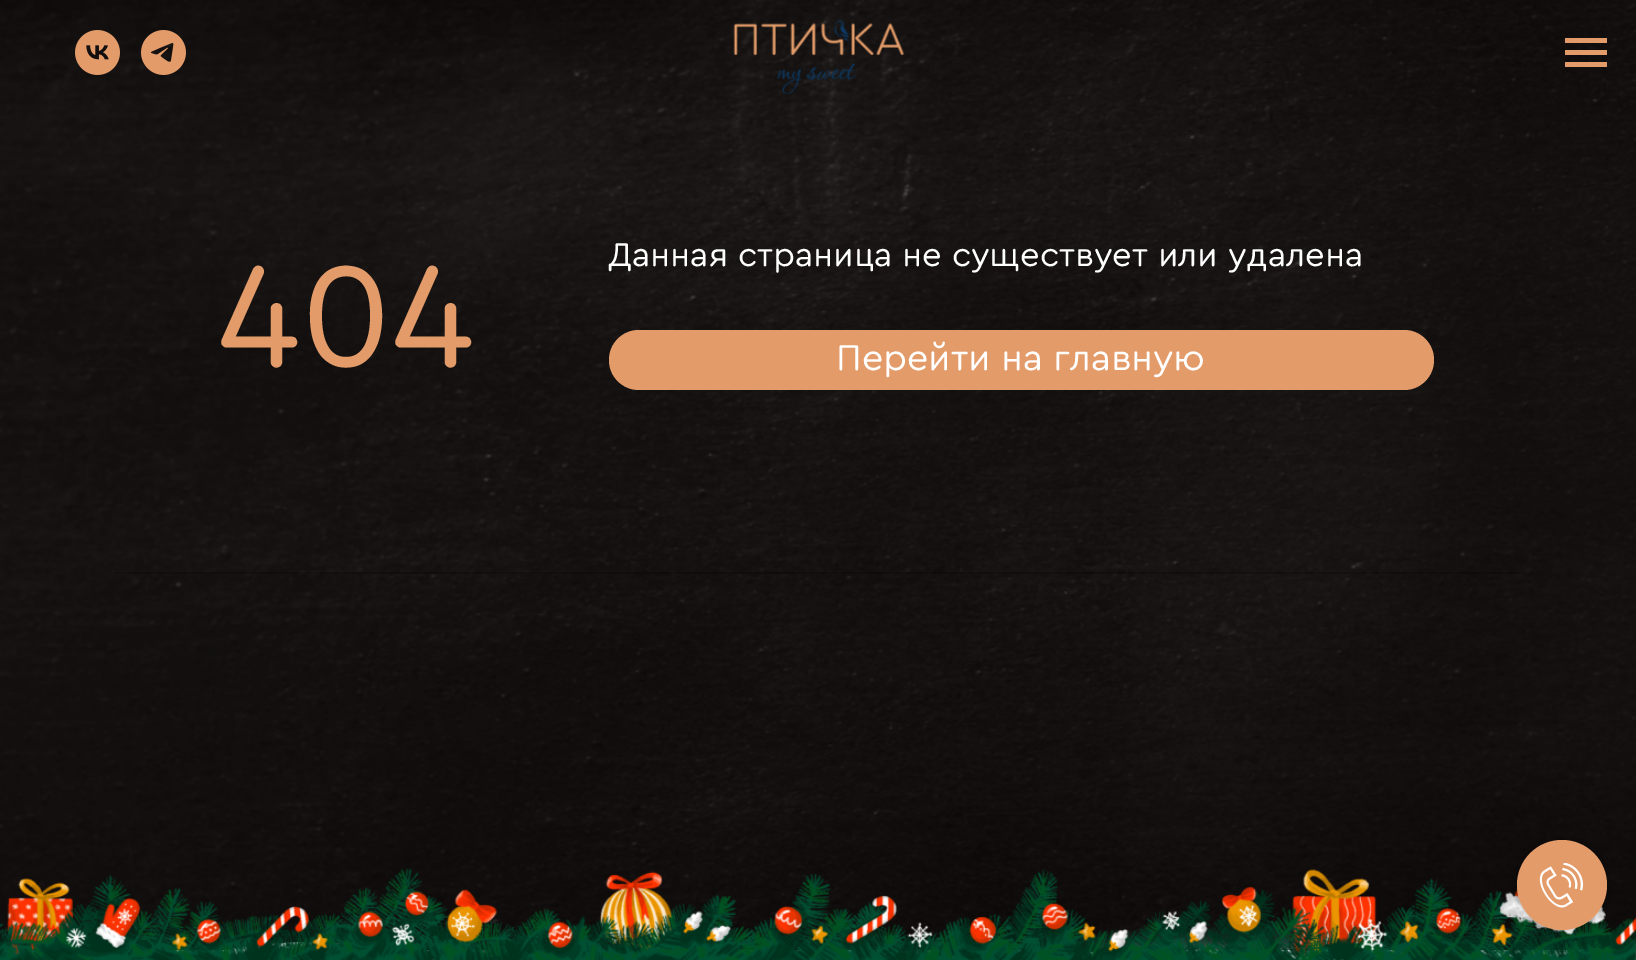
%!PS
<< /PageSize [1636 960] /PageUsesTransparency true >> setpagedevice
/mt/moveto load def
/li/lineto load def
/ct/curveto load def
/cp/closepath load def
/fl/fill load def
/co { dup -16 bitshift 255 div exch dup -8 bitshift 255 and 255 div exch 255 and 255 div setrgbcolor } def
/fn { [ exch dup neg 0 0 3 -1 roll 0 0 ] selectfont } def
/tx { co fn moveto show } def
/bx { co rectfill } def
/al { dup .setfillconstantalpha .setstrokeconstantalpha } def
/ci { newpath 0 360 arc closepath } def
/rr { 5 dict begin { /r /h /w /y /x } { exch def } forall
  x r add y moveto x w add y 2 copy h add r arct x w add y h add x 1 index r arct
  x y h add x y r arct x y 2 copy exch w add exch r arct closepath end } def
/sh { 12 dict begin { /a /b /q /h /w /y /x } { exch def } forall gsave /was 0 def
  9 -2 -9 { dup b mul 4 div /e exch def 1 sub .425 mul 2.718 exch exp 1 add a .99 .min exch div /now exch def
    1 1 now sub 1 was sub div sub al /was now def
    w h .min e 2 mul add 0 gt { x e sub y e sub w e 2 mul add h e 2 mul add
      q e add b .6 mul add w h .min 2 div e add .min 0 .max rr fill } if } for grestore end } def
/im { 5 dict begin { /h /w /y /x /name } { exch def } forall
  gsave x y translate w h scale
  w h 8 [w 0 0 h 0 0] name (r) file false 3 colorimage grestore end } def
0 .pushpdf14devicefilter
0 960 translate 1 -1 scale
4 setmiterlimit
0 0 1636 960 16#FFFFFF bx
(media/1.raw) 0 0 1636 950 im
(media/2.raw) 75 30 45 45 im
(media/3.raw) 141 30 45 45 im
(media/4.raw) 733 20 172 75 im
1565 38 42 5 16#E39B69 bx
1565 50 42 5 16#E39B69 bx
1565 62 42 5 16#E39B69 bx
31 950 1605 10 16#F1F9FC bx
310 942 mt 424 942 516 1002 516 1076 ct 516 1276 li 0 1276 li 0 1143 li 0 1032 139 942 310 942 ct cp fl
16#C5F2ED co
986 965 516 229 189 15 1 sh
16#C8EBF8 co
956 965 516 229 189 15 1 sh
16#FFFFFF co
971 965 516 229 189 15 1 sh
(media/6.raw) 0 868 1636 92 im
16#000000 co
1517 840 90 90 45 7.5 .3 sh
16#E39B69 co
1562 885 45 ci fl
(media/5.raw) 1539 863 44 45 im
609 330 825 60 30 rr fl
0.2 al
114 572 1410 2 16#000000 bx
1 al
(Данная страница не существует или удалена) 608 266 /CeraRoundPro-Regular 34.5 16#FFFFFF tx
(404) 218 366 /CeraRoundPro-Regular 150 16#E39B69 tx
(Перейти на главную) 836 370 /CeraRoundPro-Regular 37.5 16#FFFFFF tx
.poppdf14devicefilter showpage
